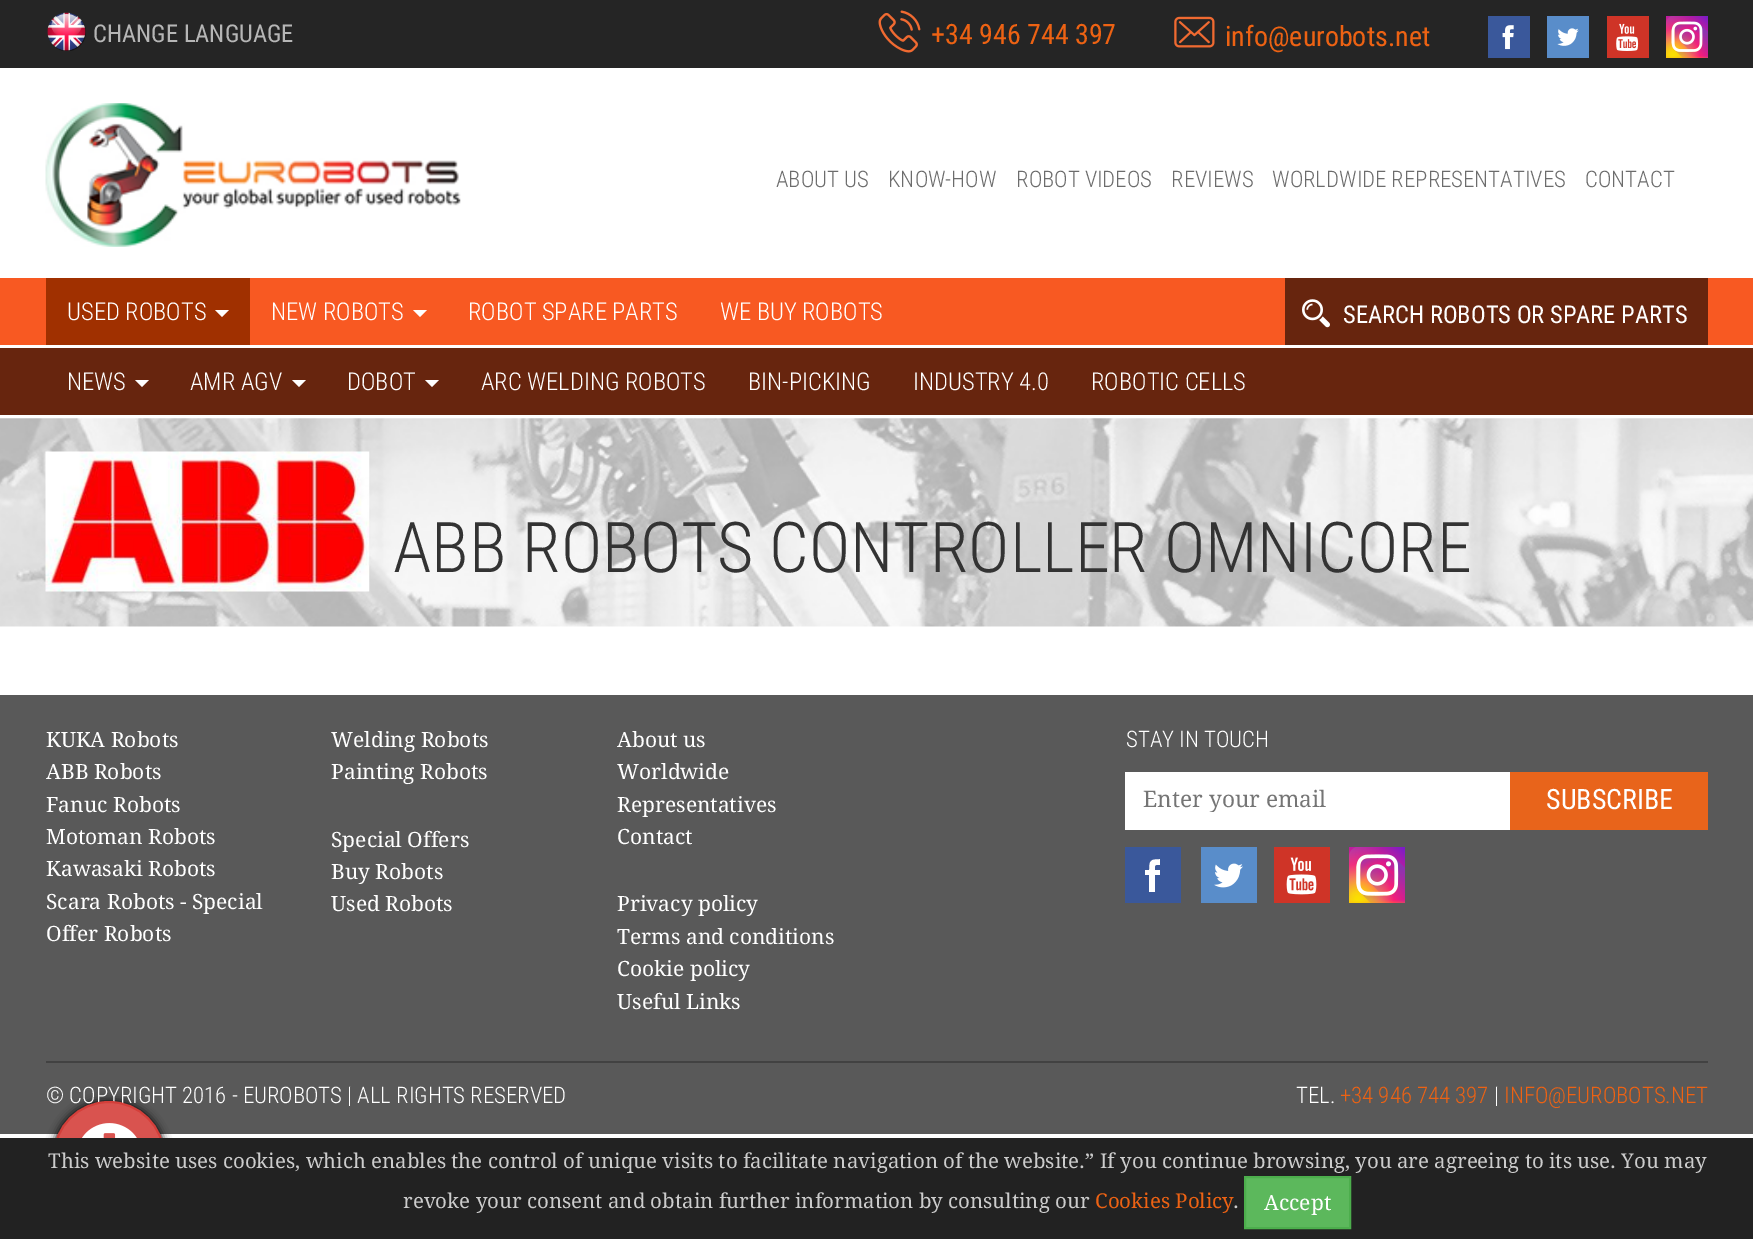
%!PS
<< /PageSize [1753 1239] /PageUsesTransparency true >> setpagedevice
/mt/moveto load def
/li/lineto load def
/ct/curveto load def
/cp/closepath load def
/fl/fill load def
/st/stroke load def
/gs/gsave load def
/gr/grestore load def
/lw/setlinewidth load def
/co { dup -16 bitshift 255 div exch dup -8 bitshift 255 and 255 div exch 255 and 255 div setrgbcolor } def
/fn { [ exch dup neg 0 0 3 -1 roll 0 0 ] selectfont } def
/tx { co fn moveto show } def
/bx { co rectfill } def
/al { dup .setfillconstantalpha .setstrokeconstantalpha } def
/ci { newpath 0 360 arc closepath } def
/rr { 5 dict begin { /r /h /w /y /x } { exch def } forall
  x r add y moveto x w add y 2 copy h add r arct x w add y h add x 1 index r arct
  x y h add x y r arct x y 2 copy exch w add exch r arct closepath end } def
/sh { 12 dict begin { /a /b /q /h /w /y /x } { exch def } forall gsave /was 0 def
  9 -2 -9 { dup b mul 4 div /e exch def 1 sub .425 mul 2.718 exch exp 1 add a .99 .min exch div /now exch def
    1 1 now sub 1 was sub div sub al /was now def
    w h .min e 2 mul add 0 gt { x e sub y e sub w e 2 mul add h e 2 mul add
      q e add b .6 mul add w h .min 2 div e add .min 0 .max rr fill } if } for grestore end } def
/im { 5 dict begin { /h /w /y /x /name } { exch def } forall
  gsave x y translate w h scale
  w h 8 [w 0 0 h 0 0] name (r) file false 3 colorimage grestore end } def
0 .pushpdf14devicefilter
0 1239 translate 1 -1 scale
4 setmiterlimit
0 0 1753 1239 16#FFFFFF bx
0 0 1753 68 16#252525 bx
(media/1.raw) 47 12 39 39 im
(media/2.raw) 878 10 43 43 im
(media/3.raw) 1174 16 41 32 im
1502 25 12 25 16#FFFFFF bx
(media/4.raw) 1488 16 42 42 im
1557 28 22 18 16#FFFFFF bx
(media/5.raw) 1547 16 42 42 im
1616 23 23 28 16#FFFFFF bx
(media/6.raw) 1607 16 42 42 im
(media/7.raw) 1666 16 42 42 im
(media/8.raw) 45 103 416 144 im
0 278 1753 67 16#F85922 bx
46 278 204 67 16#A03000 bx
16#FFFFFF co
215 310 mt 229 310 li 222 317 li cp fl
413 310 mt 427 310 li 420 317 li cp fl
1285 278 423 67 16#67250E bx
(media/9.raw) 1302 299 28 29 im
0 348 1753 67 16#67250E bx
16#FFFFFF co
135 380 mt 149 380 li 142 387 li cp fl
292 380 mt 306 380 li 299 387 li cp fl
425 380 mt 439 380 li 432 387 li cp fl
(media/10.raw) 0 418 1753 209 im
(media/11.raw) 45 451 325 141 im
0 695 1753 439 16#595959 bx
1125 772 385 58 16#FFFFFF bx
1510 772 198 58 16#E8641B bx
1145 859 15 33 16#FFFFFF bx
gs
1125 847 56 56 rectclip
16#3A589B co
1149 892 mt 1155 892 li 1155 875 li 1160 875 li 1160 870 li 1155 870 li 1155 865 1155 865 1160 865 ct 1160 859 li 1150 859 1149 860 1149 870 ct 1145 870 li 1145 875 li 1149 875 li cp 1123 846 mt 1183 846 li 1183 905 li 1123 905 li cp eofill
gr
1214 863 29 25 16#FFFFFF bx
(media/12.raw) 1201 847 56 56 im
1286 857 31 38 16#FFFFFF bx
(media/13.raw) 1274 847 56 56 im
(media/14.raw) 1349 847 56 56 im
46 1061 1662 2 16#424242 bx
16#000000 co
53 1101 112 112 56 4.5 1 sh
(CHANGE LANGUAGE) 93 42 /RobotoCondensed-Regular 24.5 16#B6B6B6 tx
(+34 946 744 397) 931 44 /RobotoCondensed-Regular 28 16#ED6213 tx
(info@eurobots.net) 1225 46 /RobotoCondensed-Regular 28 16#ED6213 tx
(ABOUT US) 776 187 /RobotoCondensed-Light 22.75 16#6C6C6C tx
(KNOW-HOW) 888 187 /RobotoCondensed-Light 22.75 16#6C6C6C tx
(ROBOT VIDEOS) 1016 187 /RobotoCondensed-Light 22.75 16#6C6C6C tx
(REVIEWS) 1171 187 /RobotoCondensed-Light 22.75 16#6C6C6C tx
(WORLDWIDE REPRESENTATIVES) 1272 187 /RobotoCondensed-Light 22.75 16#6C6C6C tx
(CONTACT) 1585 187 /RobotoCondensed-Light 22.75 16#6C6C6C tx
(USED ROBOTS) 67 320 /RobotoCondensed-Light 24.5 16#FFFFFF tx
(NEW ROBOTS) 271 320 /RobotoCondensed-Light 24.5 16#FFFFFF tx
(ROBOT SPARE PARTS) 468 320 /RobotoCondensed-Light 24.5 16#FFFFFF tx
(WE BUY ROBOTS) 720 320 /RobotoCondensed-Light 24.5 16#FFFFFF tx
(SEARCH ROBOTS OR SPARE PARTS) 1343 323 /RobotoCondensed-Regular 24.5 16#FFFFFF tx
(NEWS) 67 390 /RobotoCondensed-Light 24.5 16#FFFFFF tx
(AMR AGV) 190 390 /RobotoCondensed-Light 24.5 16#FFFFFF tx
(DOBOT) 347 390 /RobotoCondensed-Light 24.5 16#FFFFFF tx
(ARC WELDING ROBOTS) 481 390 /RobotoCondensed-Light 24.5 16#FFFFFF tx
(BIN-PICKING) 748 390 /RobotoCondensed-Light 24.5 16#FFFFFF tx
(INDUSTRY 4.0) 913 390 /RobotoCondensed-Light 24.5 16#FFFFFF tx
(ROBOTIC CELLS) 1091 390 /RobotoCondensed-Light 24.5 16#FFFFFF tx
(ABB ROBOTS CONTROLLER OMNICORE) 393 572 /RobotoCondensed-Light 70 16#333333 tx
(KUKA Robots) 46 747 /DroidSerif-Regular 21 16#FFFFFF tx
(ABB Robots) 46 779 /DroidSerif-Regular 21 16#FFFFFF tx
(Fanuc Robots) 46 812 /DroidSerif-Regular 21 16#FFFFFF tx
(Motoman Robots) 46 844 /DroidSerif-Regular 21 16#FFFFFF tx
(Kawasaki Robots) 46 876 /DroidSerif-Regular 21 16#FFFFFF tx
(Scara Robots - Special) 46 909 /DroidSerif-Regular 21 16#FFFFFF tx
(Offer Robots) 46 941 /DroidSerif-Regular 21 16#FFFFFF tx
(Welding Robots) 331 747 /DroidSerif-Regular 21 16#FFFFFF tx
(Painting Robots) 331 779 /DroidSerif-Regular 21 16#FFFFFF tx
(Special Offers) 331 847 /DroidSerif-Regular 21 16#FFFFFF tx
(Buy Robots) 331 879 /DroidSerif-Regular 21 16#FFFFFF tx
(Used Robots) 331 911 /DroidSerif-Regular 21 16#FFFFFF tx
(About us) 617 747 /DroidSerif-Regular 21 16#FFFFFF tx
(Worldwide) 617 779 /DroidSerif-Regular 21 16#FFFFFF tx
(Representatives) 617 812 /DroidSerif-Regular 21 16#FFFFFF tx
(Contact) 617 844 /DroidSerif-Regular 21 16#FFFFFF tx
(Privacy policy) 617 911 /DroidSerif-Regular 21 16#FFFFFF tx
(Terms and conditions) 617 944 /DroidSerif-Regular 21 16#FFFFFF tx
(Cookie policy) 617 976 /DroidSerif-Regular 21 16#FFFFFF tx
(Useful Links) 617 1009 /DroidSerif-Regular 21 16#FFFFFF tx
(STAY IN TOUCH) 1126 747 /RobotoCondensed-Light 22.75 16#FFFFFF tx
gs
1143 786 367 26 rectclip
(Enter your email) 1143 807 /DroidSerif-Regular 22.75 16#757575 tx
gr
(SUBSCRIBE) 1546 809 /RobotoCondensed-Regular 28 16#FFFFFF tx
(© COPYRIGHT 2016 - EUROBOTS | ALL RIGHTS RESERVED) 46 1103 /RobotoCondensed-Light 22.75 16#FFFFFF tx
(TEL.) 1296 1103 /RobotoCondensed-Light 22.75 16#FFFFFF tx
(+34 946 744 397) 1340 1103 /RobotoCondensed-Light 22.75 16#ED6213 tx
(|) 1494 1103 /RobotoCondensed-Light 22.75 16#FFFFFF tx
(INFO@EUROBOTS.NET) 1504 1103 /RobotoCondensed-Light 22.75 16#ED6213 tx
16#D9534F co
109 1157 55 ci gs fl gr
16#D43F3A co
2 lw
st
(media/15.raw) 82 1123 55 15 im
0 1138 1753 101 16#222222 bx
(This website uses cookies, which enables the control of unique visits to facilitate navigation of the website.” If you continue browsing, you are agreeing to its use. You may) 48 1168 /DroidSerif-Regular 20.47 16#CCCCCC tx
(revoke your consent and obtain further information by consulting our) 403 1208 /DroidSerif-Regular 20.47 16#CCCCCC tx
(Cookies Policy) 1095 1208 /DroidSerif-Regular 20.47 16#ED6213 tx
(.) 1233 1208 /DroidSerif-Regular 20.47 16#CCCCCC tx
16#5CB85C co
1245 1177 mt 1350 1177 li 1350 1228 li 1245 1228 li cp gs fl gr
16#4CAE4C co
st
(Accept) 1264 1210 /DroidSerif-Regular 21 16#FFFFFF tx
.poppdf14devicefilter showpage
